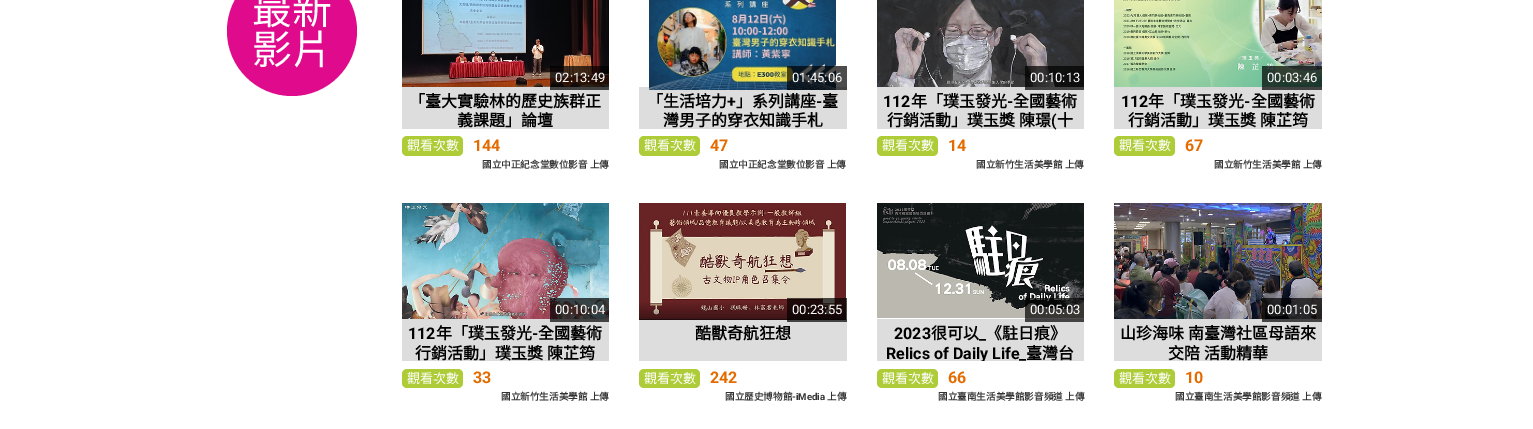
%!PS
<< /PageSize [1533 429] /PageUsesTransparency true >> setpagedevice
/fl/fill load def
/gs/gsave load def
/gr/grestore load def
/co { dup -16 bitshift 255 div exch dup -8 bitshift 255 and 255 div exch 255 and 255 div setrgbcolor } def
/fn { [ exch dup neg 0 0 3 -1 roll 0 0 ] selectfont } def
/tx { co fn moveto show } def
/bx { co rectfill } def
/al { dup .setfillconstantalpha .setstrokeconstantalpha } def
/ci { newpath 0 360 arc closepath } def
/rr { 5 dict begin { /r /h /w /y /x } { exch def } forall
  x r add y moveto x w add y 2 copy h add r arct x w add y h add x 1 index r arct
  x y h add x y r arct x y 2 copy exch w add exch r arct closepath end } def
/im { 5 dict begin { /h /w /y /x /name } { exch def } forall
  gsave x y translate w h scale
  w h 8 [w 0 0 h 0 0] name (r) file false 3 colorimage grestore end } def
0 .pushpdf14devicefilter
0 429 translate 1 -1 scale
4 setmiterlimit
0 0 1533 429 16#FFFFFF bx
16#DF0A8C co
292 31 65 ci fl
(media/1.raw) 402 0 207 87 im
402 87 207 42 16#DDDDDD bx
0.7 al
550 66 59 24 16#000000 bx
1 al
16#ADCC37 co
402 136 61 20 5 rr fl
639 87 208 42 16#DDDDDD bx
(media/2.raw) 649 0 187 90 im
0.7 al
787 66 60 24 16#000000 bx
1 al
16#ADCC37 co
639 136 61 20 5 rr fl
(media/3.raw) 877 0 207 87 im
877 87 207 42 16#DDDDDD bx
0.7 al
1025 66 59 24 16#000000 bx
1 al
16#ADCC37 co
877 136 61 20 5 rr fl
(media/4.raw) 1114 0 208 87 im
1114 87 208 42 16#DDDDDD bx
0.7 al
1262 66 60 24 16#000000 bx
1 al
16#ADCC37 co
1114 136 61 20 5 rr fl
(media/5.raw) 402 203 207 116 im
402 319 207 42 16#DDDDDD bx
0.7 al
550 298 59 24 16#000000 bx
1 al
16#ADCC37 co
402 369 61 19 5 rr fl
639 319 208 42 16#DDDDDD bx
(media/6.raw) 639 203 207 117 im
0.7 al
787 298 60 24 16#000000 bx
1 al
16#ADCC37 co
639 369 61 19 5 rr fl
(media/7.raw) 877 203 207 115 im
877 319 207 42 16#DDDDDD bx
0.7 al
1025 298 59 24 16#000000 bx
1 al
16#ADCC37 co
877 369 61 19 5 rr fl
(media/8.raw) 1114 203 208 116 im
1114 319 208 42 16#DDDDDD bx
0.7 al
1262 298 60 24 16#000000 bx
1 al
16#ADCC37 co
1114 369 61 19 5 rr fl
(最新) 252 24 /NotoSansCJKTC-Regular 40 16#FFFFFF tx
(影片) 252 64 /NotoSansCJKTC-Regular 40 16#FFFFFF tx
(02:13:49) 555 82 /Roboto-Regular 13 16#FFFFFF tx
(「臺大實驗林的歷史族群正) 409 107 /NotoSansCJKTC-Bold 16 16#000000 tx
(義課題」論壇) 457 126 /NotoSansCJKTC-Bold 16 16#000000 tx
(觀看次數) 407 150 /NotoSansCJKTC-Regular 13 16#FFFFFF tx
(144) 473 151 /Roboto-Bold 16 16#E36B00 tx
(國立中正紀念堂數位影音 上傳) 482 168 /NotoSansCJKTC-Bold 9.6 16#333333 tx
(01:45:06) 792 82 /Roboto-Regular 13 16#FFFFFF tx
(「生活培力) 647 107 /NotoSansCJKTC-Bold 16 16#000000 tx
(+) 727 107 /Roboto-Bold 16 16#000000 tx
(」系列講座) 736 107 /NotoSansCJKTC-Bold 16 16#000000 tx
(-) 816 107 /Roboto-Bold 16 16#000000 tx
(臺) 822 107 /NotoSansCJKTC-Bold 16 16#000000 tx
(灣男子的穿衣知識手札) 663 126 /NotoSansCJKTC-Bold 16 16#000000 tx
(觀看次數) 644 150 /NotoSansCJKTC-Regular 13 16#FFFFFF tx
(47) 710 151 /Roboto-Bold 16 16#E36B00 tx
(國立中正紀念堂數位影音 上傳) 719 168 /NotoSansCJKTC-Bold 9.6 16#333333 tx
(00:10:13) 1030 82 /Roboto-Regular 13 16#FFFFFF tx
(112) 883 107 /Roboto-Bold 16 16#000000 tx
(年「璞玉發光) 911 107 /NotoSansCJKTC-Bold 16 16#000000 tx
(-) 1007 107 /Roboto-Bold 16 16#000000 tx
(全國藝術) 1013 107 /NotoSansCJKTC-Bold 16 16#000000 tx
(行銷活動」璞玉獎 陳璟) 887 126 /NotoSansCJKTC-Bold 16 16#000000 tx
(\() 1051 126 /Roboto-Bold 16 16#000000 tx
(十) 1057 126 /NotoSansCJKTC-Bold 16 16#000000 tx
(觀看次數) 882 150 /NotoSansCJKTC-Regular 13 16#FFFFFF tx
(14) 948 151 /Roboto-Bold 16 16#E36B00 tx
(國立新竹生活美學館 上傳) 976 168 /NotoSansCJKTC-Bold 9.6 16#333333 tx
(00:03:46) 1267 82 /Roboto-Regular 13 16#FFFFFF tx
(112) 1121 107 /Roboto-Bold 16 16#000000 tx
(年「璞玉發光) 1148 107 /NotoSansCJKTC-Bold 16 16#000000 tx
(-) 1244 107 /Roboto-Bold 16 16#000000 tx
(全國藝術) 1251 107 /NotoSansCJKTC-Bold 16 16#000000 tx
(行銷活動」璞玉獎 陳芷筠) 1128 126 /NotoSansCJKTC-Bold 16 16#000000 tx
(觀看次數) 1119 150 /NotoSansCJKTC-Regular 13 16#FFFFFF tx
(67) 1185 151 /Roboto-Bold 16 16#E36B00 tx
(國立新竹生活美學館 上傳) 1214 168 /NotoSansCJKTC-Bold 9.6 16#333333 tx
(00:10:04) 555 314 /Roboto-Regular 13 16#FFFFFF tx
(112) 408 339 /Roboto-Bold 16 16#000000 tx
(年「璞玉發光) 436 339 /NotoSansCJKTC-Bold 16 16#000000 tx
(-) 532 339 /Roboto-Bold 16 16#000000 tx
(全國藝術) 538 339 /NotoSansCJKTC-Bold 16 16#000000 tx
(行銷活動」璞玉獎 陳芷筠) 415 359 /NotoSansCJKTC-Bold 16 16#000000 tx
(觀看次數) 407 383 /NotoSansCJKTC-Regular 13 16#FFFFFF tx
(33) 473 383 /Roboto-Bold 16 16#E36B00 tx
(國立新竹生活美學館 上傳) 501 400 /NotoSansCJKTC-Bold 9.6 16#333333 tx
(00:23:55) 792 314 /Roboto-Regular 13 16#FFFFFF tx
(酷獸奇航狂想) 695 339 /NotoSansCJKTC-Bold 16 16#000000 tx
(觀看次數) 644 383 /NotoSansCJKTC-Regular 13 16#FFFFFF tx
(242) 710 383 /Roboto-Bold 16 16#E36B00 tx
(國立歷史博物館) 725 400 /NotoSansCJKTC-Bold 9.6 16#333333 tx
(-iMedia) 792 400 /Roboto-Bold 9.6 16#333333 tx
(上傳) 827 400 /NotoSansCJKTC-Bold 9.6 16#333333 tx
(00:05:03) 1030 314 /Roboto-Regular 13 16#FFFFFF tx
(2023) 894 339 /Roboto-Bold 16 16#000000 tx
(很可以) 931 339 /NotoSansCJKTC-Bold 16 16#000000 tx
(_) 979 339 /Roboto-Bold 16 16#000000 tx
(《駐日痕》) 986 339 /NotoSansCJKTC-Bold 16 16#000000 tx
gs
877 319 207 42 rectclip
(Relics of Daily Life_) 886 359 /Roboto-Bold 16 16#000000 tx
gr
(臺灣台) 1026 359 /NotoSansCJKTC-Bold 16 16#000000 tx
(觀看次數) 882 383 /NotoSansCJKTC-Regular 13 16#FFFFFF tx
(66) 948 383 /Roboto-Bold 16 16#E36B00 tx
(國立臺南生活美學館影音頻道 上傳) 938 400 /NotoSansCJKTC-Bold 9.6 16#333333 tx
(00:01:05) 1267 314 /Roboto-Regular 13 16#FFFFFF tx
(山珍海味 南臺灣社區母語來) 1120 339 /NotoSansCJKTC-Bold 16 16#000000 tx
(交陪 活動精華) 1168 359 /NotoSansCJKTC-Bold 16 16#000000 tx
(觀看次數) 1119 383 /NotoSansCJKTC-Regular 13 16#FFFFFF tx
(10) 1185 383 /Roboto-Bold 16 16#E36B00 tx
(國立臺南生活美學館影音頻道 上傳) 1175 400 /NotoSansCJKTC-Bold 9.6 16#333333 tx
.poppdf14devicefilter showpage
